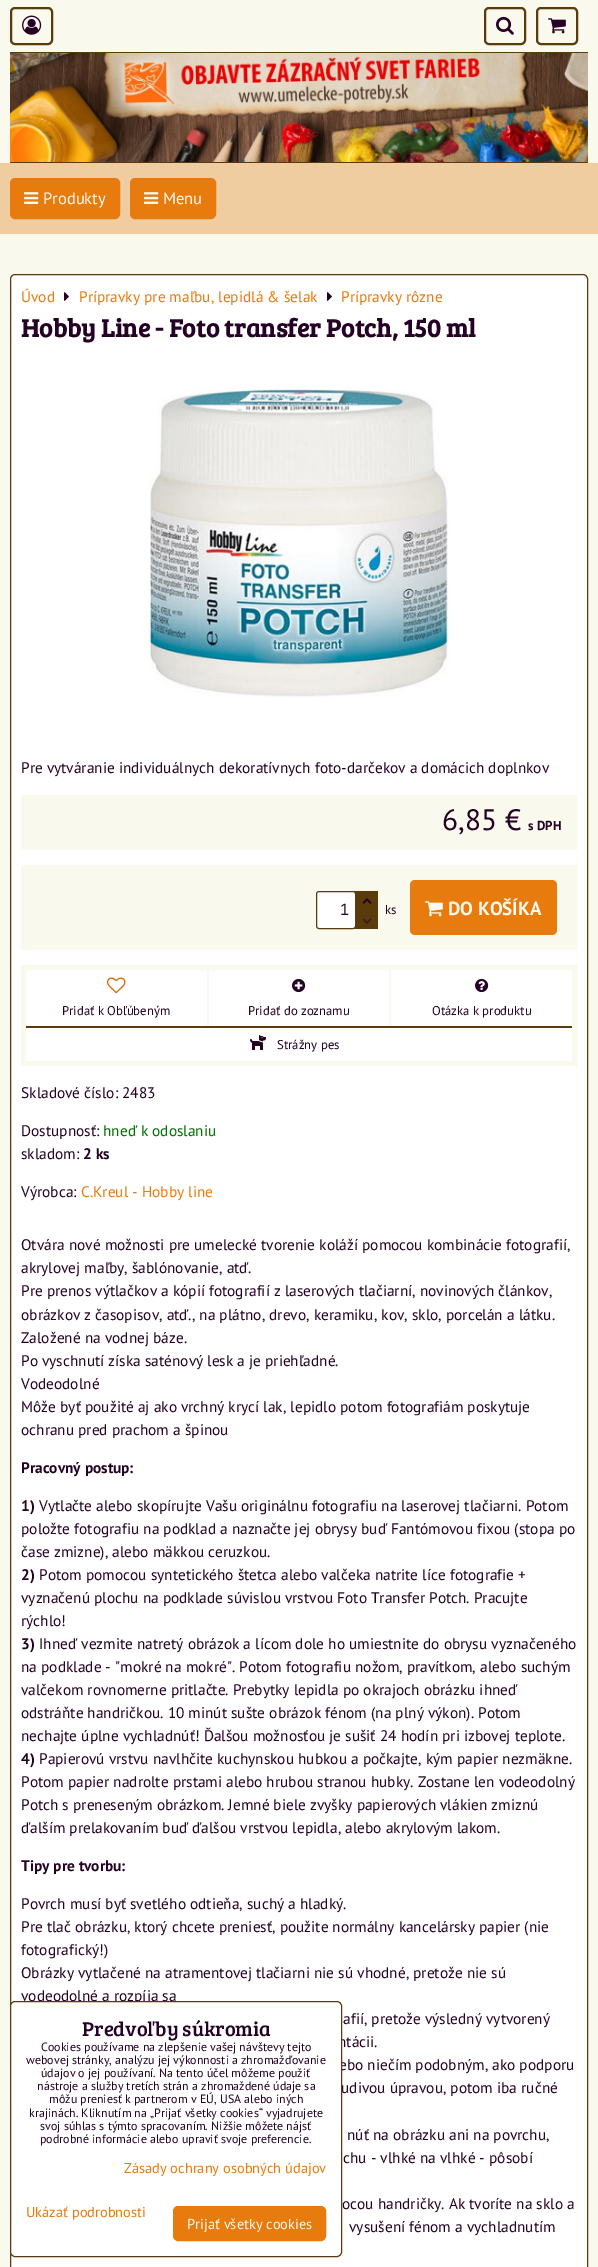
%!PS
<< /PageSize [598 2267] >> setpagedevice
/fl/fill load def
/st/stroke load def
/gs/gsave load def
/gr/grestore load def
/lw/setlinewidth load def
/co { dup -16 bitshift 255 div exch dup -8 bitshift 255 and 255 div exch 255 and 255 div setrgbcolor } def
/fn { [ exch dup neg 0 0 3 -1 roll 0 0 ] selectfont } def
/tx { co fn moveto show } def
/bx { co rectfill } def
/rr { 5 dict begin { /r /h /w /y /x } { exch def } forall
  x r add y moveto x w add y 2 copy h add r arct x w add y h add x 1 index r arct
  x y h add x y r arct x y 2 copy exch w add exch r arct closepath end } def
/im { 5 dict begin { /h /w /y /x /name } { exch def } forall
  gsave x y translate w h scale
  w h 8 [w 0 0 h 0 0] name (r) file false 3 colorimage grestore end } def
0 2267 translate 1 -1 scale
4 setmiterlimit
0 0 598 2267 16#FAF9ED bx
16#593B0C co
2 lw
11 8 41 36 4 rr st
(media/1.raw) 22 15 20 20 im
485 8 40 36 4 rr st
(media/2.raw) 496 16 18 19 im
537 8 40 36 4 rr st
(media/3.raw) 548 18 18 16 im
10 52 578 1 16#593B0C bx
10 162 578 1 16#593B0C bx
(media/4.raw) 10 53 578 109 im
0 163 598 71 16#F0CDA1 bx
16#E87B0E co
10.5 178.5 109 40 4.5 rr gs fl gr
1 lw
st
(media/5.raw) 24 192 15 12 im
130.5 178.5 85 40 4.5 rr gs fl gr
st
(media/5.raw) 144 192 15 12 im
16#FFFFFF co
10.5 274.5 577 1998 4.5 rr gs fl gr
16#593B0C co
st
(media/6.raw) 64 292 5 9 im
(media/6.raw) 327 292 5 9 im
(media/7.raw) 143 385 306 312 im
21 795 556 55 16#FAF9ED bx
21 865 556 85 16#FAF9ED bx
353 891 25 38 16#593B0C bx
16#FFFFFF co
316.5 891.5 39 37 2.5 rr gs fl gr
16#593B0C co
st
(media/8.raw) 362 898 10 6 im
(media/9.raw) 362 918 10 6 im
16#E87B0E co
410 880 147 55 5 rr fl
(media/10.raw) 425 901 18 16 im
16#FAF9ED co
5 lw
23.5 967.5 551 96 rectstroke
(media/11.raw) 107 977 19 17 im
207 970 2 56 16#FAF9ED bx
(media/12.raw) 292 978 14 15 im
389 970 2 56 16#FAF9ED bx
(media/13.raw) 475 978 14 15 im
26 1026 546 2 16#593B0C bx
(media/14.raw) 250 1035 16 15 im
(Produkty) 43 204 /PTSans-Regular 16.5 16#FAF9ED tx
(Menu) 163 204 /PTSans-Regular 16.5 16#FAF9ED tx
(Úvod) 21 302 /PTSans-Regular 15.35 16#E87B0E tx
(Prípravky pre maľbu, lepidlá & šelak) 79 302 /PTSans-Regular 15.35 16#E87B0E tx
(Prípravky rôzne) 341 302 /PTSans-Regular 15.35 16#E87B0E tx
(Hobby Line - Foto transfer Potch, 150 ml) 21 337 /BreeSerif-Bold 25.6 16#260126 tx
(Pre vytváranie individuálnych dekoratívnych foto-darčekov a domácich doplnkov) 21 773 /PTSans-Regular 15.35 16#260126 tx
(6,85 €) 442 830 /PTSans-Regular 29.5 16#260126 tx
(s DPH) 528 830 /PTSans-Bold 13 16#260126 tx
(1) 340 915 /LiberationSans-Regular 16.5 16#260126 tx
(ks) 385 914 /PTSans-Regular 12.75 16#260126 tx
(DO KOŠÍKA) 448 915 /PTSans-Bold 19 16#FAF9ED tx
(Pridať k Obľúbeným) 62 1015 /PTSans-Regular 12.75 16#260126 tx
(Pridať do zoznamu) 248 1015 /PTSans-Regular 12.75 16#260126 tx
(Otázka k produktu) 432 1015 /PTSans-Regular 12.75 16#260126 tx
(Strážny pes) 277 1049 /PTSans-Regular 12.75 16#260126 tx
(Skladové číslo: 2483) 21 1098 /PTSans-Regular 15.35 16#260126 tx
(Dostupnosť:) 21 1136 /PTSans-Regular 15.35 16#260126 tx
(hneď k odoslaniu) 103 1136 /PTSans-Regular 15.35 16#007000 tx
(skladom:) 21 1159 /PTSans-Regular 15.35 16#260126 tx
(2 ks) 83 1159 /PTSans-Bold 15.35 16#260126 tx
(Výrobca:) 21 1197 /PTSans-Regular 15.35 16#260126 tx
(C.Kreul - Hobby line) 81 1197 /PTSans-Regular 15.35 16#E87B0E tx
(Otvára nové možnosti pre umelecké tvorenie koláží pomocou kombinácie fotografií,) 21 1250 /PTSans-Regular 15.35 16#260126 tx
(akrylovej maľby, šablónovanie, atď.) 21 1273 /PTSans-Regular 15.35 16#260126 tx
(Pre prenos výtlačkov a kópií fotografií z laserových tlačiarní, novinových článkov,) 21 1296 /PTSans-Regular 15.35 16#260126 tx
(obrázkov z časopisov, atď., na plátno, drevo, keramiku, kov, sklo, porcelán a látku.) 21 1320 /PTSans-Regular 15.35 16#260126 tx
(Založené na vodnej báze.) 21 1343 /PTSans-Regular 15.35 16#260126 tx
(Po vyschnutí získa saténový lesk a je priehľadné.) 21 1366 /PTSans-Regular 15.35 16#260126 tx
(Vodeodolné) 21 1389 /PTSans-Regular 15.35 16#260126 tx
(Môže byť použité aj ako vrchný krycí lak, lepidlo potom fotografiám poskytuje) 21 1412 /PTSans-Regular 15.35 16#260126 tx
(ochranu pred prachom a špinou) 21 1435 /PTSans-Regular 15.35 16#260126 tx
(Pracovný postup:) 21 1473 /PTSans-Bold 15.35 16#260126 tx
(1\)) 21 1511 /PTSans-Bold 15.35 16#260126 tx
(Vytlačte alebo skopírujte Vašu originálnu fotografiu na laserovej tlačiarni. Potom) 39 1511 /PTSans-Regular 15.35 16#260126 tx
(položte fotografiu na podklad a naznačte jej obrysy buď Fantómovou fixou \(stopa po) 21 1534 /PTSans-Regular 15.35 16#260126 tx
(čase zmizne\), alebo mäkkou ceruzkou.) 21 1557 /PTSans-Regular 15.35 16#260126 tx
(2\)) 21 1580 /PTSans-Bold 15.35 16#260126 tx
(Potom pomocou syntetického štetca alebo valčeka natrite líce fotografie +) 39 1580 /PTSans-Regular 15.35 16#260126 tx
(vyznačenú plochu na podklade súvislou vrstvou Foto Transfer Potch. Pracujte) 21 1603 /PTSans-Regular 15.35 16#260126 tx
(rýchlo!) 21 1626 /PTSans-Regular 15.35 16#260126 tx
(3\)) 21 1649 /PTSans-Bold 15.35 16#260126 tx
(Ihneď vezmite natretý obrázok a lícom dole ho umiestnite do obrysu vyznačeného) 39 1649 /PTSans-Regular 15.35 16#260126 tx
(na podklade - "mokré na mokré". Potom fotografiu nožom, pravítkom, alebo suchým) 21 1672 /PTSans-Regular 15.35 16#260126 tx
(valčekom rovnomerne pritlačte. Prebytky lepidla po okrajoch obrázku ihneď) 21 1695 /PTSans-Regular 15.35 16#260126 tx
(odstráňte handričkou. 10 minút sušte obrázok fénom \(na plný výkon\). Potom) 21 1718 /PTSans-Regular 15.35 16#260126 tx
(nechajte úplne vychladnúť! Ďalšou možnosťou je sušiť 24 hodín pri izbovej teplote.) 21 1741 /PTSans-Regular 15.35 16#260126 tx
(4\)) 21 1764 /PTSans-Bold 15.35 16#260126 tx
(Papierovú vrstvu navlhčite kuchynskou hubkou a počkajte, kým papier nezmäkne.) 39 1764 /PTSans-Regular 15.35 16#260126 tx
(Potom papier nadrolte prstami alebo hrubou stranou hubky. Zostane len vodeodolný) 21 1787 /PTSans-Regular 15.35 16#260126 tx
(Potch s preneseným obrázkom. Jemné biele zvyšky papierových vlákien zmiznú) 21 1810 /PTSans-Regular 15.35 16#260126 tx
(ďalším prelakovaním buď ďalšou vrstvou lepidla, alebo akrylovým lakom.) 21 1833 /PTSans-Regular 15.35 16#260126 tx
(Tipy pre tvorbu:) 21 1871 /PTSans-Bold 15.35 16#260126 tx
(Povrch musí byť svetlého odtieňa, suchý a hladký.) 21 1909 /PTSans-Regular 15.35 16#260126 tx
(Pre tlač obrázku, ktorý chcete preniesť, použite normálny kancelársky papier \(nie) 21 1932 /PTSans-Regular 15.35 16#260126 tx
(fotografický!\)) 21 1955 /PTSans-Regular 15.35 16#260126 tx
(Obrázky vytlačené na atramentovej tlačiarni nie sú vhodné, pretože nie sú) 21 1978 /PTSans-Regular 15.35 16#260126 tx
(vodeodolné a rozpíja sa) 21 2001 /PTSans-Regular 15.35 16#260126 tx
(afií, pretože výsledný vytvorený) 343 2024 /PTSans-Regular 15.35 16#260126 tx
(ntácii.) 338 2047 /PTSans-Regular 15.35 16#260126 tx
(ebo niečím podobným, ako podporu) 339 2070 /PTSans-Regular 15.35 16#260126 tx
(udivou úpravou, potom iba ručné) 341 2093 /PTSans-Regular 15.35 16#260126 tx
(núť na obrázku ani na povrchu,) 347 2140 /PTSans-Regular 15.35 16#260126 tx
(chu - vlhké na vlhké - pôsobí) 343 2163 /PTSans-Regular 15.35 16#260126 tx
(ocou handričky. Ak tvoríte na sklo a) 342 2209 /PTSans-Regular 15.35 16#260126 tx
(vysušení fénom a vychladnutím) 349 2232 /PTSans-Regular 15.35 16#260126 tx
16#FFFFFF co
10.5 2001.5 331 255 4.5 rr gs fl gr
16#593B0C co
1 lw
st
(Predvoľby súkromia) 82 2036 /BreeSerif-Regular 20.5 16#260126 tx
(Cookies používame na zlepšenie vašej návštevy tejto) 41 2051 /PTSans-Regular 12 16#260126 tx
(webovej stránky, analýzu jej výkonnosti a zhromažďovanie) 26 2064 /PTSans-Regular 12 16#260126 tx
(údajov o jej používaní. Na tento účel môžeme použiť) 41 2077 /PTSans-Regular 12 16#260126 tx
(nástroje a služby tretích strán a zhromaždené údaje sa) 37 2090 /PTSans-Regular 12 16#260126 tx
(môžu preniesť k partnerom v EÚ, USA alebo iných) 49 2103 /PTSans-Regular 12 16#260126 tx
(krajinách. Kliknutím na „Prijať všetky cookies“ vyjadrujete) 29 2117 /PTSans-Regular 12 16#260126 tx
(svoj súhlas s týmto spracovaním. Nižšie môžete nájsť) 40 2130 /PTSans-Regular 12 16#260126 tx
(podrobné informácie alebo upraviť svoje preferencie.) 40 2143 /PTSans-Regular 12 16#260126 tx
(Zásady ochrany osobných údajov) 124 2173 /PTSans-Regular 14.4 16#E87B0E tx
(Ukázať podrobnosti) 26 2217 /PTSans-Regular 14.4 16#E87B0E tx
173.5 2206.5 152 34 4.5 rr gs fl gr
st
(Prijať všetky cookies) 187 2229 /PTSans-Regular 14.4 16#FAF9ED tx
showpage
